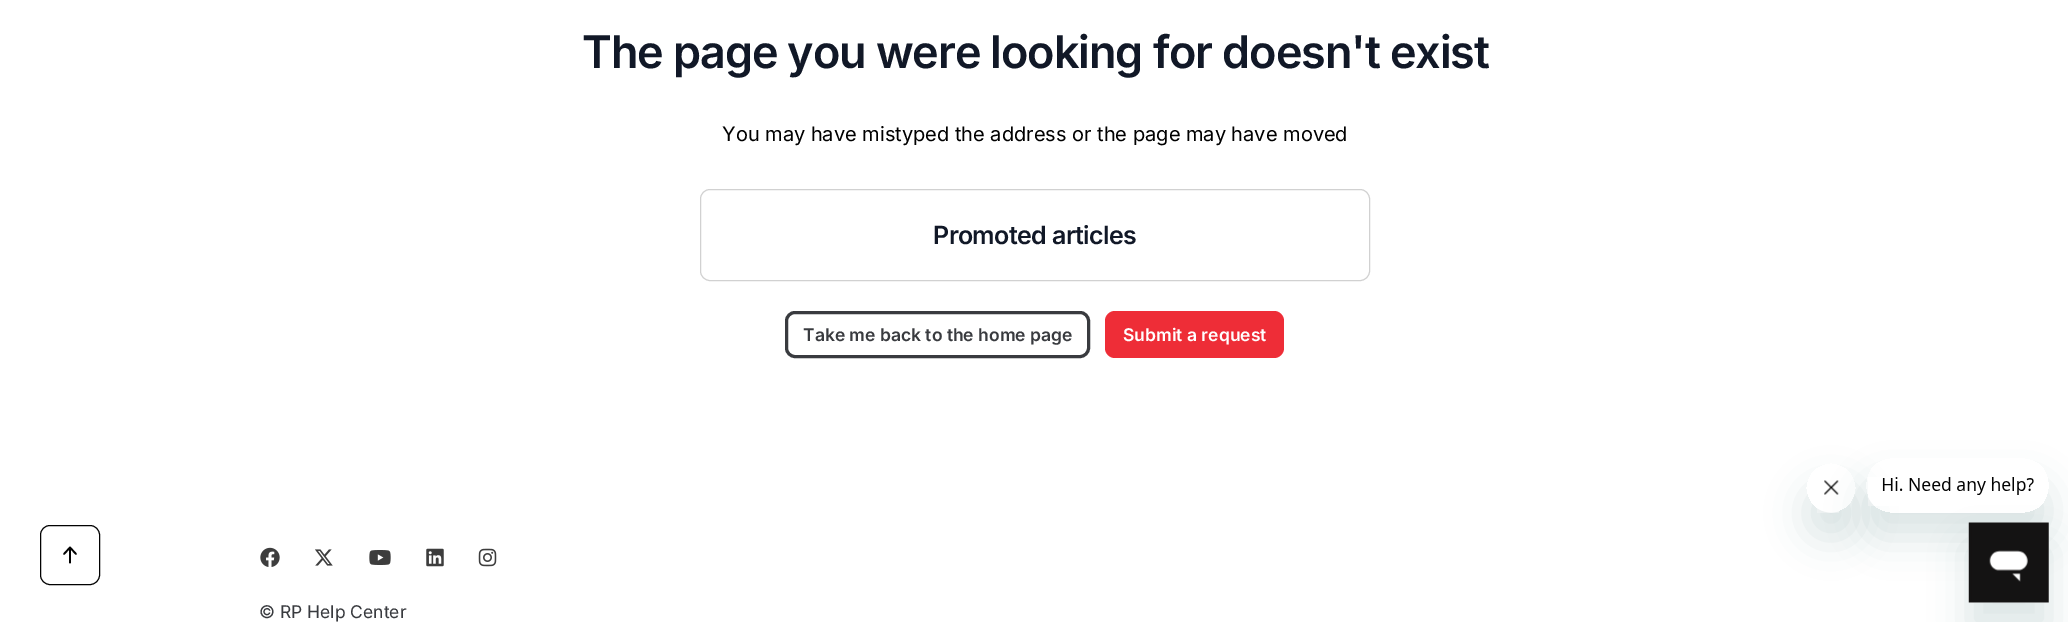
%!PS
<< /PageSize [2068 622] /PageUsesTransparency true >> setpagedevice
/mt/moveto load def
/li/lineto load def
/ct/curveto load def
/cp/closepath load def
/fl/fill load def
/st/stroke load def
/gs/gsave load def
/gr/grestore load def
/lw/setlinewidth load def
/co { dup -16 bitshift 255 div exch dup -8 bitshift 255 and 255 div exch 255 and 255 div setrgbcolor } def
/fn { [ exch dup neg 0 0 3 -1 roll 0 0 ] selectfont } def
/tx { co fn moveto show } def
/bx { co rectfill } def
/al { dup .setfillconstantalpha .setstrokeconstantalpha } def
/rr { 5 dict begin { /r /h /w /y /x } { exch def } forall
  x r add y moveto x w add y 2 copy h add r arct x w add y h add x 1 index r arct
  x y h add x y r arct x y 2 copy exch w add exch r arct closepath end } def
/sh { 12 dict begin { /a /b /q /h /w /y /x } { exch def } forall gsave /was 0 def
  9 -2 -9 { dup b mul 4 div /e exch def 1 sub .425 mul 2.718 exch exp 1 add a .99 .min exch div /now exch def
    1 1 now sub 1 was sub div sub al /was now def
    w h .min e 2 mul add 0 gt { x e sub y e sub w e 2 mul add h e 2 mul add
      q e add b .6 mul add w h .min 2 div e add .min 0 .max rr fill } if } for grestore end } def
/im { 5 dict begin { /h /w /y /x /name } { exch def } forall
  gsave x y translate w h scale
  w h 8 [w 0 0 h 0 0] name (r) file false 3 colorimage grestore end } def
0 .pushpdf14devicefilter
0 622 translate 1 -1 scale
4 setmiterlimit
0 0 2068 622 16#FFFFFF bx
16#020202 co
40.5 525.5 59 59 9.5 rr st
1.7 lw
1 setlinecap
1 setlinejoin
64 554 mt 70 547.5 li 70 547.5 mt 76 554 li 70 547.5 mt 70 562.5 li st
16#D1D1D1 co
1 lw
0 setlinecap
0 setlinejoin
700.5 189.5 669 91 9.5 rr st
16#393B3F co
3 lw
786.5 312.5 302 44 8.5 rr st
16#EE2D37 co
1105 311 179 47 10 rr fl
(media/1.raw) 260 547 20 20 im
(media/2.raw) 315 549 18 17 im
(media/3.raw) 369 550 22 15 im
(media/4.raw) 426 548 18 19 im
(media/5.raw) 478 548 19 19 im
gs
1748 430 mt 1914 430 li 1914 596 li 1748 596 li cp 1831 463 mt 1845 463 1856 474 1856 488 ct 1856 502 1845 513 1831 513 ct 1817 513 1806 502 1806 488 ct 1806 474 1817 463 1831 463 ct cp eoclip newpath
16#17494D co
1806 488 50 50 25 19 .15 sh
gr
(media/7.raw) 1817 480 22 33 im
gs
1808 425 mt 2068 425 li 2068 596 li 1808 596 li cp 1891 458 mt 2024 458 li 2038 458 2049 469 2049 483 ct 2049 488 li 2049 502 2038 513 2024 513 ct 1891 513 li 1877 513 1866 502 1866 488 ct 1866 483 li 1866 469 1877 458 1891 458 ct cp eoclip newpath
16#17494D co
1866 483 183 55 25 19 .15 sh
gr
(media/6.raw) 1868 477 166 29 im
16#17494D co
1969 548 80 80 0 19 .15 sh
(media/8.raw) 1968 522 81 81 im
/Inter-SemiBold 45 fn
16#111827 co
582 68 mt -1.1 0 (The page you were looking for doesn't exist) ashow
(You may have mistyped the address or the page may have moved) 722 141 /Inter-Regular 20 16#000000 tx
/Inter-SemiBold 25 fn
16#111827 co
933 244 mt -.6 0 (Promoted articles) ashow
(Take me back to the home page) 803 341 /Inter-SemiBold 17.5 16#393B3F tx
(Submit a request) 1123 341 /Inter-SemiBold 17.5 16#FFFFFF tx
(© RP Help Center) 259 618 /Inter-Regular 17.5 16#393B3F tx
.poppdf14devicefilter showpage
